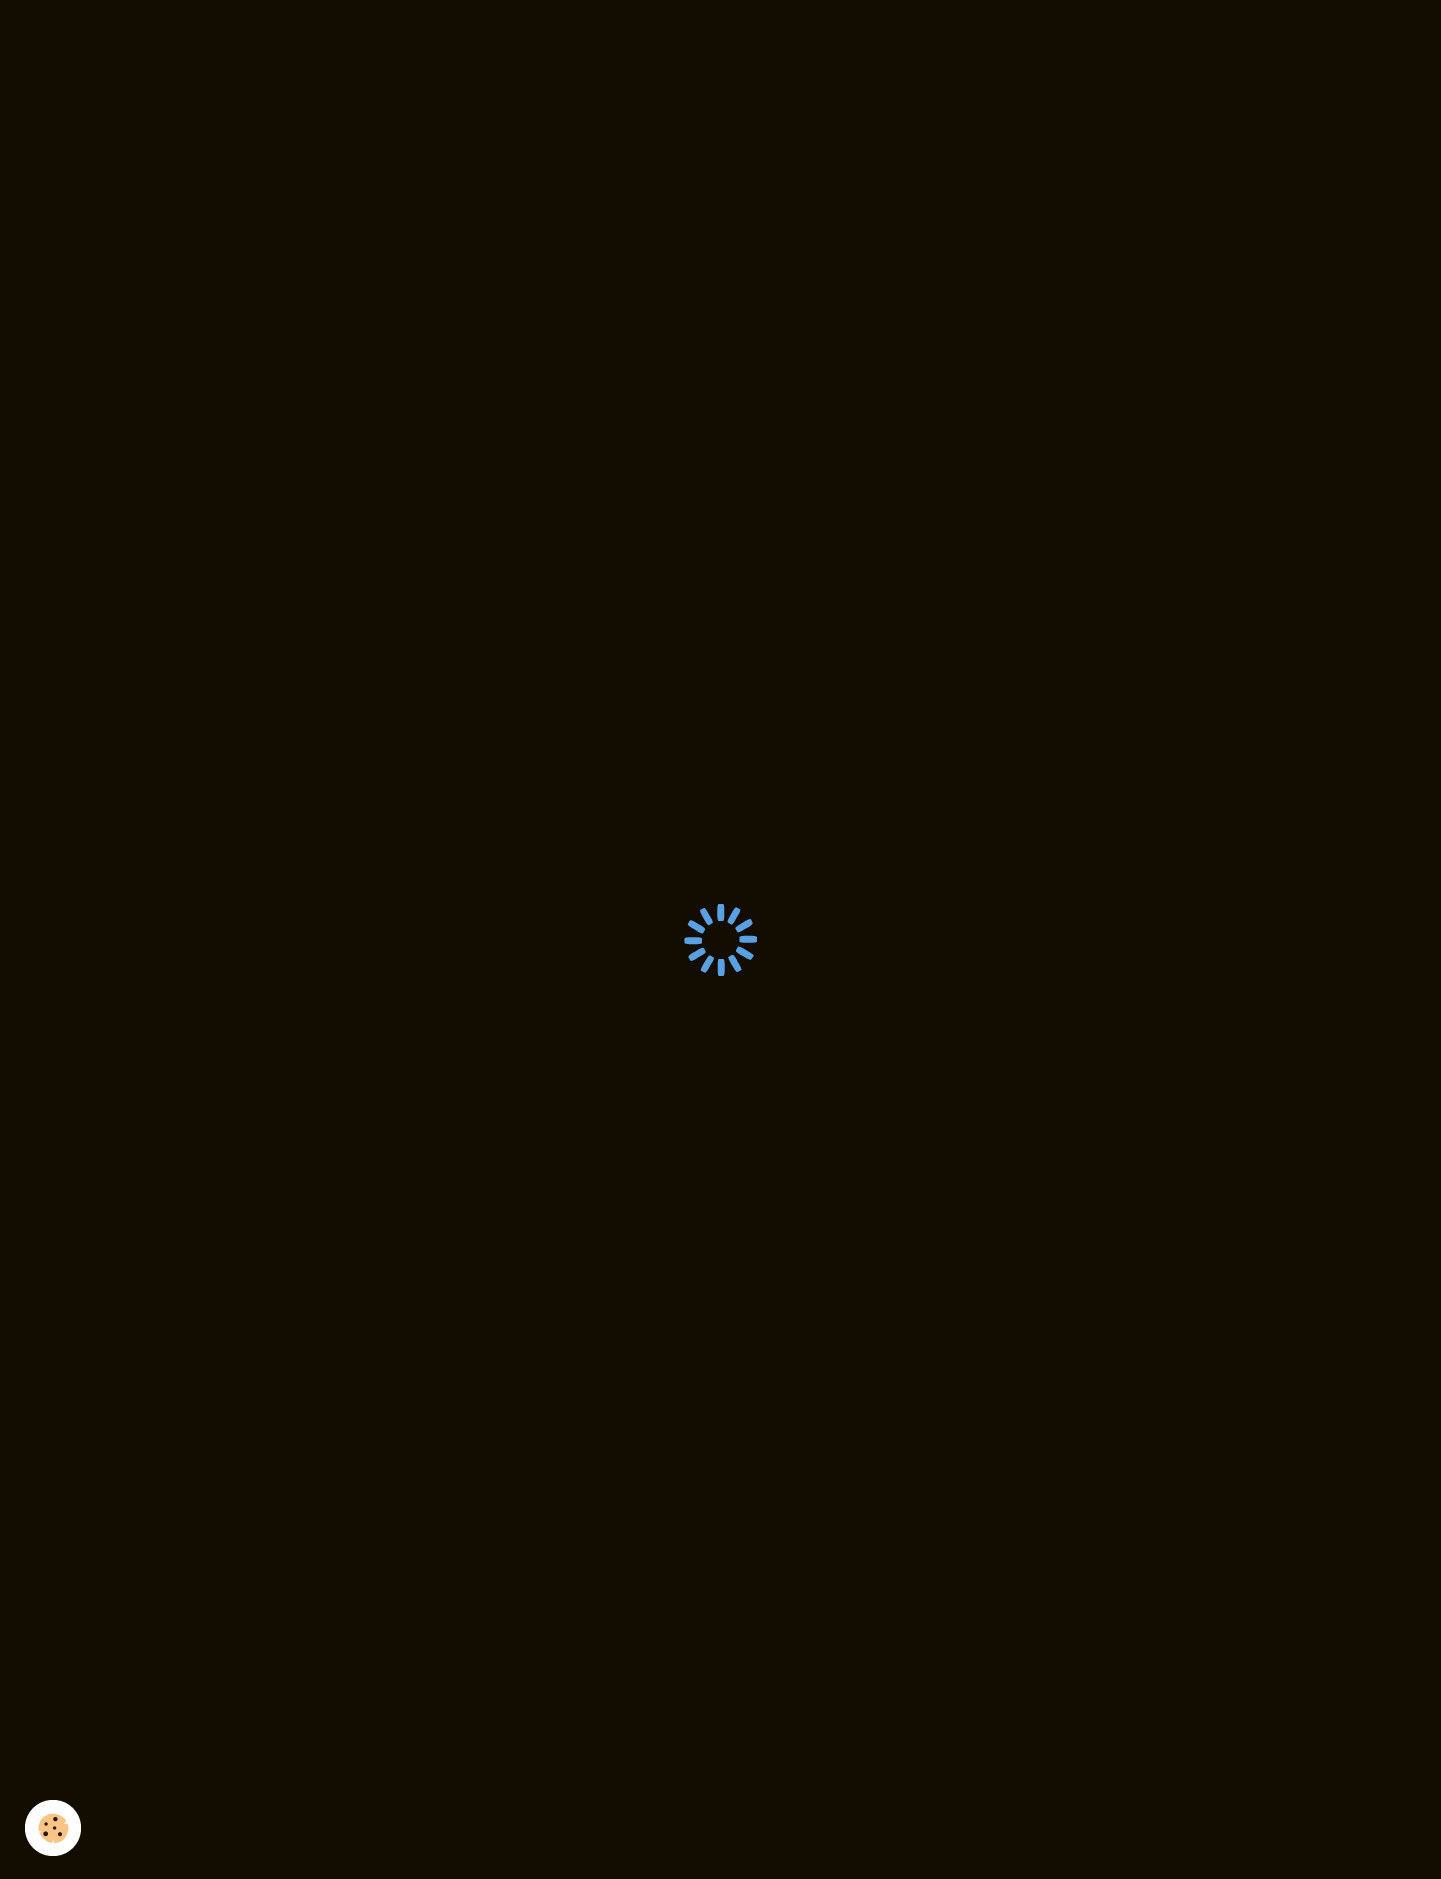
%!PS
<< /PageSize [1441 1879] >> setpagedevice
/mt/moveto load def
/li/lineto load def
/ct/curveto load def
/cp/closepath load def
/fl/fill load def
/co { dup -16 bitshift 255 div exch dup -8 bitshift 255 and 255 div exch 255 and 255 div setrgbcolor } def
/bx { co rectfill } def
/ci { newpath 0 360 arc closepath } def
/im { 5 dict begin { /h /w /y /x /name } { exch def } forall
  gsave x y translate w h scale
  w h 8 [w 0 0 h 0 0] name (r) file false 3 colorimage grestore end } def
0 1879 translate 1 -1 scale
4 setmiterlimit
0 0 1441 1879 16#130D01 bx
16#59A1E3 co
719 904 mt 723 904 li 724.5 904.5 724 911 724 912.5 ct 724 914 724.5 920.5 723 921 ct 719 921 li 717 921 717.5 913 717.5 912.5 ct 717.5 912 717 904 719 904 ct cp 736.5 907.5 mt 740 909.5 li 741 911 737 916.5 736.5 917.5 ct 736 918.5 733 924.5 731.5 924.5 ct 728 922.5 li 726.5 921.5 731 915 731 914.5 ct 731.5 914 735 906.5 736.5 907.5 ct cp fl
751 919.5 mt 752.5 923 li 752.5 925 747 928 745.5 928.5 ct 744.5 929 739 933 737.5 932 ct 735.5 928.5 li 735 927 742 923.5 742.5 923 ct 743 922.5 750 918 751 919.5 ct cp 757 937.5 mt 757 941.5 li 756 943 749.5 942.5 748 942.5 ct 747 942.5 740.5 943 739.5 941.5 ct 739.5 937.5 li 739.5 935.5 747.5 936 748 936 ct 749 936 757 935.5 757 937.5 ct cp 753.5 956 mt 751 959.5 li 749.5 960.5 744.5 956.5 743 956 ct 742 955.5 736 952.5 736 950.5 ct 738 947 li 739 945.5 745.5 950 746.5 950.5 ct 747 951 754 954.5 753.5 956 ct cp fl
741 970 mt 737.5 972 li 735.5 972 733 966 732 965 ct 731.5 964 728 958.5 728.5 957 ct 732 955 li 734 954 737.5 961.5 737.5 962 ct 738 962.5 742.5 969.5 741 970 ct cp 723 976 mt 719 976 li 717.5 975.5 718 969 718 967.5 ct 718 966 717.5 959.5 719 959 ct 723 959 li 725 959 724.5 967 724.5 967.5 ct 724.5 968 725 976 723 976 ct cp 704.5 972.5 mt 701 970.5 li 700.5 969 704 963.5 704.5 962.5 ct 705.5 961.5 708 955.5 710 955.5 ct 713.5 957.5 li 715 958.5 710.5 965 710 965.5 ct 710 966 706 973.5 704.5 972.5 ct cp fl
690.5 960.5 mt 688.5 957 li 688.5 955 694.5 952 695.5 951.5 ct 696.5 951 702 947 703.5 948 ct 705.5 951.5 li 706.5 953 699.5 956.5 698.5 957 ct 698 957.5 691.5 962 690.5 960.5 ct cp 684.5 942.5 mt 684.5 938.5 li 685.5 937 692 937.5 693 937.5 ct 694.5 937.5 701 937 702 938.5 ct 702 942.5 li 702 944.5 694 944 693 944 ct 692.5 944 684.5 944.5 684.5 942.5 ct cp 688 924 mt 690 920.5 li 691.5 919.5 697 923.5 698 924 ct 699 924.5 705 927.5 705 929.5 ct 703 933 li 702 934.5 695.5 930 695 929.5 ct 694.5 929 687 925.5 688 924 ct cp fl
700.5 910 mt 704 908 li 705.5 908 708.5 914 709 915 ct 709.5 916 713.5 921.5 712.5 923 ct 709 925 li 707.5 926 704 918.5 703.5 918 ct 703.5 917.5 699 910.5 700.5 910 ct cp fl
16#FFFFFF co
53 1828 28 ci fl
(media/1.raw) 38 1813 31 30 im
showpage
